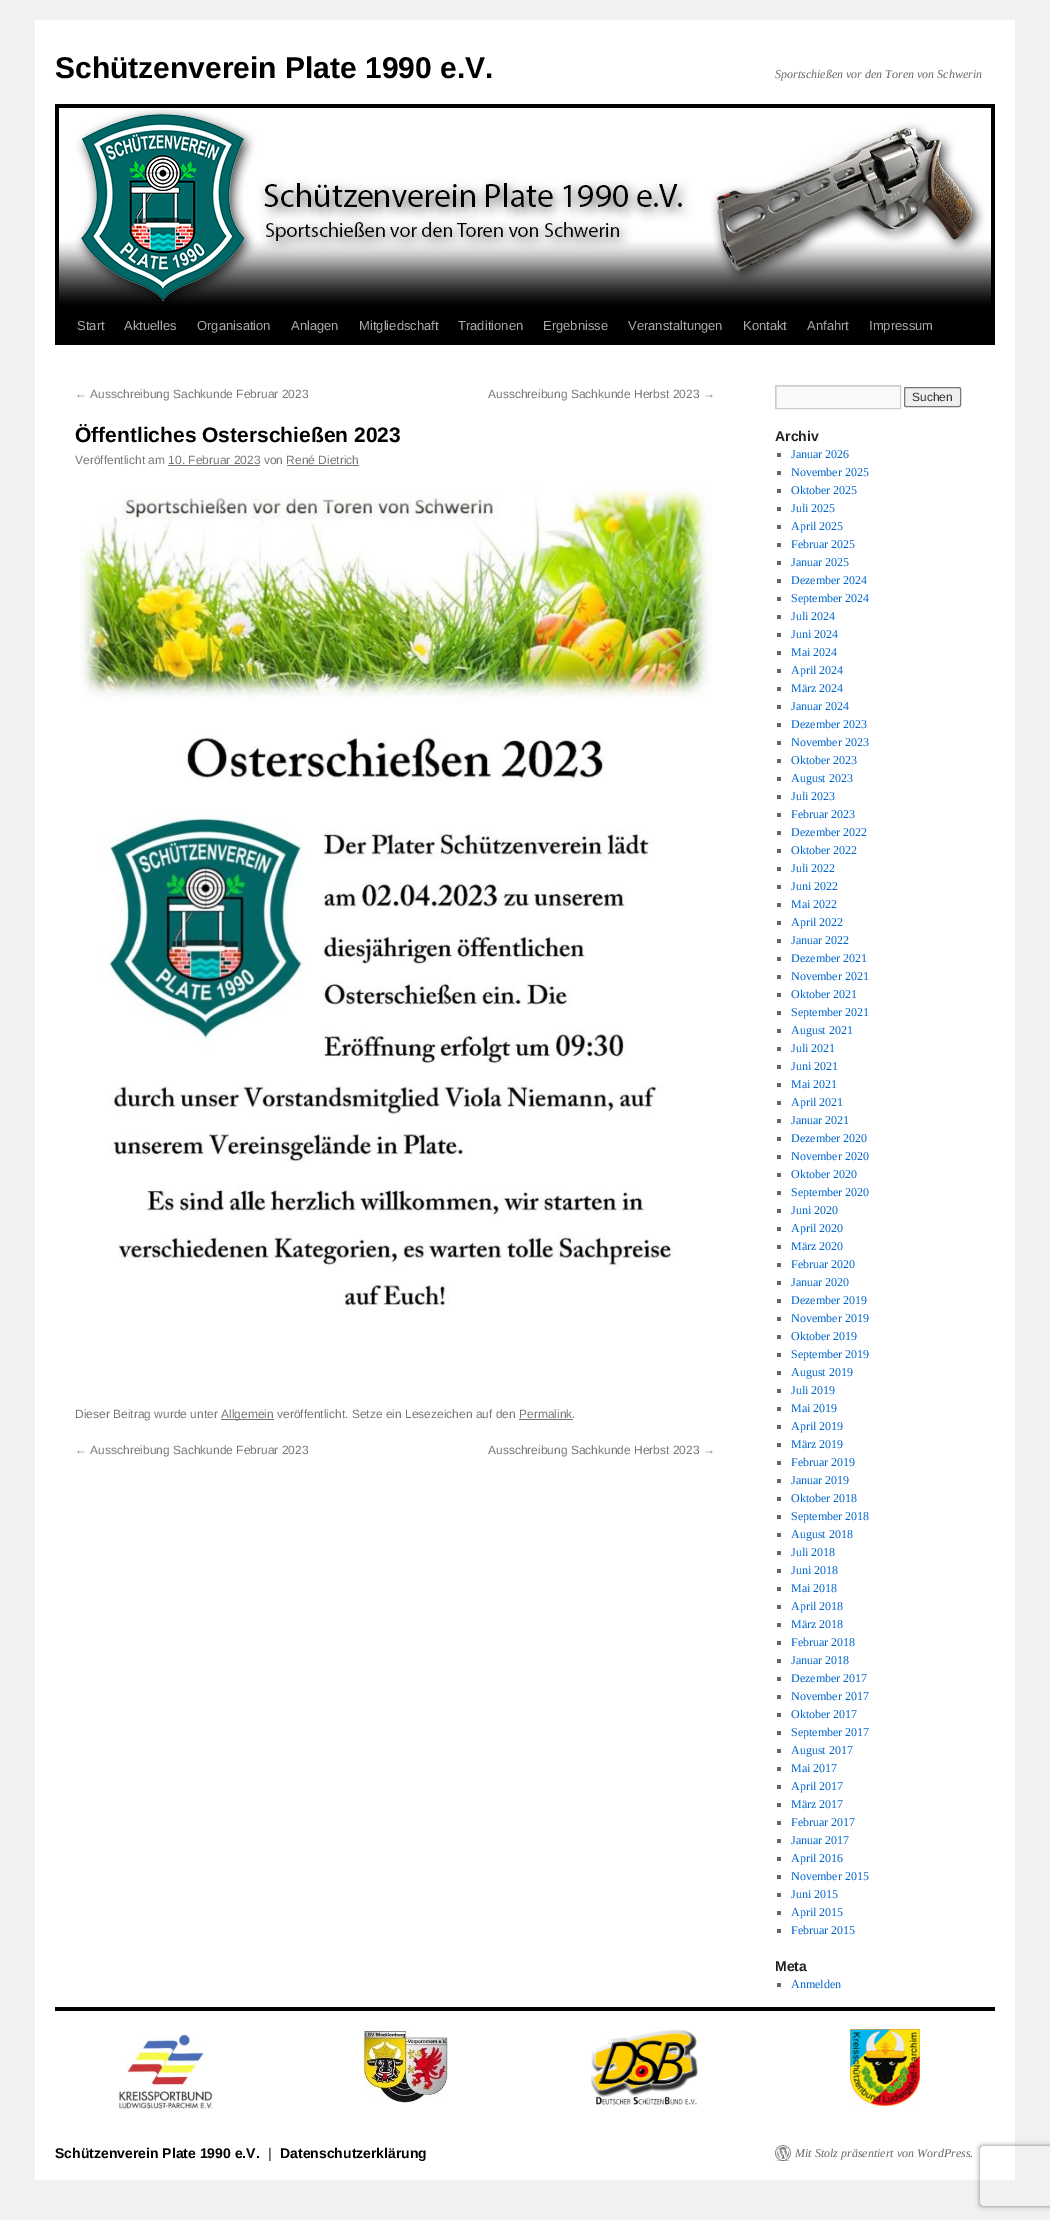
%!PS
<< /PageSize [1050 2220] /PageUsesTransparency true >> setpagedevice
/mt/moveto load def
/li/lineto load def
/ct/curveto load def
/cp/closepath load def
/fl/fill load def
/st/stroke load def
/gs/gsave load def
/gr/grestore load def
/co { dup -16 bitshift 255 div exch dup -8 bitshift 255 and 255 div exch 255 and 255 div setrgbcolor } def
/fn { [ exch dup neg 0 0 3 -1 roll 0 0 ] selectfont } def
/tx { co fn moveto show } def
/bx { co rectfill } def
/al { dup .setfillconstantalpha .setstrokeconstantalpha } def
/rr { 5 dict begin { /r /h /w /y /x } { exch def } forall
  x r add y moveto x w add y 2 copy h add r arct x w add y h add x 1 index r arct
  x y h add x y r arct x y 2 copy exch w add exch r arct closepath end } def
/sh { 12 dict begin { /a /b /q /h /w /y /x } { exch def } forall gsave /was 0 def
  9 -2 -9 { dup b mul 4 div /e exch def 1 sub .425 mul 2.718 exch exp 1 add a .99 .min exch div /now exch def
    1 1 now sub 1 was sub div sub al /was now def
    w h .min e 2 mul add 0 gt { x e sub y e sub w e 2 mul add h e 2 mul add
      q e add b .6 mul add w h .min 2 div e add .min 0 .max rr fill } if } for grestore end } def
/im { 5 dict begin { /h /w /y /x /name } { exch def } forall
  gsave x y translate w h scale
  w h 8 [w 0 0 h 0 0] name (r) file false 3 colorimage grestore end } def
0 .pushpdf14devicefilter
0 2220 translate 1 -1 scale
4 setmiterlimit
0 0 1050 2220 16#F1F1F1 bx
35 20 980 2160 16#FFFFFF bx
55 104 940 4 16#000000 bx
55 306 940 39 16#000000 bx
(media/1.raw) 55 108 940 198 im
168 465 92 1 16#777777 bx
287 465 72 1 16#777777 bx
(media/2.raw) 80 484 632 827 im
221 1419 53 1 16#777777 bx
519 1419 54 1 16#777777 bx
777 387 123 21 16#F9F9F9 bx
gs
776 386 124 22 rectclip
16#E0E0E0 co
677 287 mt 999 287 li 999 507 li 677 507 li cp 777 387 mt 901 387 li 901 409 li 777 409 li cp eofill
gr
16#CCCCCC co
775.5 385.5 125 23 rectstroke
16#EFEFEF co
904.5 387.5 56 19 1.5 rr gs fl gr
16#767676 co
st
777 453 4 4 16#666666 bx
777 471 4 4 16#666666 bx
777 489 4 4 16#666666 bx
777 507 4 4 16#666666 bx
777 525 4 4 16#666666 bx
777 543 4 4 16#666666 bx
777 561 4 4 16#666666 bx
777 579 4 4 16#666666 bx
777 597 4 4 16#666666 bx
777 615 4 4 16#666666 bx
777 633 4 4 16#666666 bx
777 651 4 4 16#666666 bx
777 669 4 4 16#666666 bx
777 687 4 4 16#666666 bx
777 705 4 4 16#666666 bx
777 723 4 4 16#666666 bx
777 741 4 4 16#666666 bx
777 759 4 4 16#666666 bx
777 777 4 4 16#666666 bx
777 795 4 4 16#666666 bx
777 813 4 4 16#666666 bx
777 831 4 4 16#666666 bx
777 849 4 4 16#666666 bx
777 867 4 4 16#666666 bx
777 885 4 4 16#666666 bx
777 903 4 4 16#666666 bx
777 921 4 4 16#666666 bx
777 939 4 4 16#666666 bx
777 957 4 4 16#666666 bx
777 975 4 4 16#666666 bx
777 993 4 4 16#666666 bx
777 1011 4 4 16#666666 bx
777 1029 4 4 16#666666 bx
777 1047 4 4 16#666666 bx
777 1065 4 4 16#666666 bx
777 1083 4 4 16#666666 bx
777 1101 4 4 16#666666 bx
777 1119 4 4 16#666666 bx
777 1137 4 4 16#666666 bx
777 1155 4 4 16#666666 bx
777 1173 4 4 16#666666 bx
777 1191 4 4 16#666666 bx
777 1209 4 4 16#666666 bx
777 1227 4 4 16#666666 bx
777 1245 4 4 16#666666 bx
777 1263 4 4 16#666666 bx
777 1281 4 4 16#666666 bx
777 1299 4 4 16#666666 bx
777 1317 4 4 16#666666 bx
777 1335 4 4 16#666666 bx
777 1353 4 4 16#666666 bx
777 1371 4 4 16#666666 bx
777 1389 4 4 16#666666 bx
777 1407 4 4 16#666666 bx
777 1425 4 4 16#666666 bx
777 1443 4 4 16#666666 bx
777 1461 4 4 16#666666 bx
777 1479 4 4 16#666666 bx
777 1497 4 4 16#666666 bx
777 1515 4 4 16#666666 bx
777 1533 4 4 16#666666 bx
777 1551 4 4 16#666666 bx
777 1569 4 4 16#666666 bx
777 1587 4 4 16#666666 bx
777 1605 4 4 16#666666 bx
777 1623 4 4 16#666666 bx
777 1641 4 4 16#666666 bx
777 1659 4 4 16#666666 bx
777 1677 4 4 16#666666 bx
777 1695 4 4 16#666666 bx
777 1713 4 4 16#666666 bx
777 1731 4 4 16#666666 bx
777 1749 4 4 16#666666 bx
777 1767 4 4 16#666666 bx
777 1785 4 4 16#666666 bx
777 1803 4 4 16#666666 bx
777 1821 4 4 16#666666 bx
777 1839 4 4 16#666666 bx
777 1857 4 4 16#666666 bx
777 1875 4 4 16#666666 bx
777 1893 4 4 16#666666 bx
777 1911 4 4 16#666666 bx
777 1929 4 4 16#666666 bx
777 1983 4 4 16#666666 bx
55 2007 940 4 16#000000 bx
(media/3.raw) 119 2034 94 75 im
(media/4.raw) 363 2029 85 74 im
(media/5.raw) 591 2030 107 75 im
(media/6.raw) 850 2029 70 77 im
(media/7.raw) 775 2145 16 16 im
gs
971 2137 mt 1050 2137 li 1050 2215 li 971 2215 li cp 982 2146 mt 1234 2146 li 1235 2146 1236 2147 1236 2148 ct 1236 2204 li 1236 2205 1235 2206 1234 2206 ct 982 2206 li 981 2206 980 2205 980 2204 ct 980 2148 li 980 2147 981 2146 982 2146 ct cp eoclip newpath
16#808080 co
980 2146 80 60 2 2.5 1 sh
gr
(Schützenverein Plate 1990 e.V.) 55 78 /LiberationSans-Bold 30 16#000000 tx
(Sportschießen vor den Toren von Schwerin) 775 78 /LiberationSerif-Italic 12 16#666666 tx
(Start) 77 330 /LiberationSans-Regular 13 16#AAAAAA tx
(Aktuelles) 124 330 /LiberationSans-Regular 13 16#AAAAAA tx
(Organisation) 197 330 /LiberationSans-Regular 13 16#AAAAAA tx
(Anlagen) 291 330 /LiberationSans-Regular 13 16#AAAAAA tx
(Mitgliedschaft) 359 330 /LiberationSans-Regular 13 16#AAAAAA tx
(Traditionen) 458 330 /LiberationSans-Regular 13 16#AAAAAA tx
(Ergebnisse) 543 330 /LiberationSans-Regular 13 16#AAAAAA tx
(Veranstaltungen) 628 330 /LiberationSans-Regular 13 16#AAAAAA tx
(Kontakt) 743 330 /LiberationSans-Regular 13 16#AAAAAA tx
(Anfahrt) 807 330 /LiberationSans-Regular 13 16#AAAAAA tx
(Impressum) 869 330 /LiberationSans-Regular 13 16#AAAAAA tx
(← Ausschreibung Sachkunde Februar 2023) 75 398 /LiberationSans-Regular 12 16#777777 tx
(Ausschreibung Sachkunde Herbst 2023 →) 488 398 /LiberationSans-Regular 12 16#777777 tx
(Öffentliches Osterschießen 2023) 75 442 /LiberationSans-Bold 21 16#000000 tx
(Veröffentlicht am 10. Februar 2023 von René Dietrich) 75 464 /LiberationSans-Regular 12 16#777777 tx
(Dieser Beitrag wurde unter) 75 1418 /LiberationSans-Regular 12 16#777777 tx
(Allgemein veröffentlicht. Setze ein Lesezeichen auf den Permalink.) 221 1418 /LiberationSans-Regular 12 16#777777 tx
(← Ausschreibung Sachkunde Februar 2023) 75 1454 /LiberationSans-Regular 12 16#777777 tx
(Ausschreibung Sachkunde Herbst 2023 →) 488 1454 /LiberationSans-Regular 12 16#777777 tx
(Suchen) 912 401 /LiberationSans-Regular 12 16#333333 tx
(Archiv) 775 441 /LiberationSans-Bold 14 16#222222 tx
(Januar 2026) 791 458 /LiberationSerif-Regular 12 16#0066CC tx
(November 2025) 791 476 /LiberationSerif-Regular 12 16#0066CC tx
(Oktober 2025) 791 494 /LiberationSerif-Regular 12 16#0066CC tx
(Juli 2025) 791 512 /LiberationSerif-Regular 12 16#0066CC tx
(April 2025) 791 530 /LiberationSerif-Regular 12 16#0066CC tx
(Februar 2025) 791 548 /LiberationSerif-Regular 12 16#0066CC tx
(Januar 2025) 791 566 /LiberationSerif-Regular 12 16#0066CC tx
(Dezember 2024) 791 584 /LiberationSerif-Regular 12 16#0066CC tx
(September 2024) 791 602 /LiberationSerif-Regular 12 16#0066CC tx
(Juli 2024) 791 620 /LiberationSerif-Regular 12 16#0066CC tx
(Juni 2024) 791 638 /LiberationSerif-Regular 12 16#0066CC tx
(Mai 2024) 791 656 /LiberationSerif-Regular 12 16#0066CC tx
(April 2024) 791 674 /LiberationSerif-Regular 12 16#0066CC tx
(März 2024) 791 692 /LiberationSerif-Regular 12 16#0066CC tx
(Januar 2024) 791 710 /LiberationSerif-Regular 12 16#0066CC tx
(Dezember 2023) 791 728 /LiberationSerif-Regular 12 16#0066CC tx
(November 2023) 791 746 /LiberationSerif-Regular 12 16#0066CC tx
(Oktober 2023) 791 764 /LiberationSerif-Regular 12 16#0066CC tx
(August 2023) 791 782 /LiberationSerif-Regular 12 16#0066CC tx
(Juli 2023) 791 800 /LiberationSerif-Regular 12 16#0066CC tx
(Februar 2023) 791 818 /LiberationSerif-Regular 12 16#0066CC tx
(Dezember 2022) 791 836 /LiberationSerif-Regular 12 16#0066CC tx
(Oktober 2022) 791 854 /LiberationSerif-Regular 12 16#0066CC tx
(Juli 2022) 791 872 /LiberationSerif-Regular 12 16#0066CC tx
(Juni 2022) 791 890 /LiberationSerif-Regular 12 16#0066CC tx
(Mai 2022) 791 908 /LiberationSerif-Regular 12 16#0066CC tx
(April 2022) 791 926 /LiberationSerif-Regular 12 16#0066CC tx
(Januar 2022) 791 944 /LiberationSerif-Regular 12 16#0066CC tx
(Dezember 2021) 791 962 /LiberationSerif-Regular 12 16#0066CC tx
(November 2021) 791 980 /LiberationSerif-Regular 12 16#0066CC tx
(Oktober 2021) 791 998 /LiberationSerif-Regular 12 16#0066CC tx
(September 2021) 791 1016 /LiberationSerif-Regular 12 16#0066CC tx
(August 2021) 791 1034 /LiberationSerif-Regular 12 16#0066CC tx
(Juli 2021) 791 1052 /LiberationSerif-Regular 12 16#0066CC tx
(Juni 2021) 791 1070 /LiberationSerif-Regular 12 16#0066CC tx
(Mai 2021) 791 1088 /LiberationSerif-Regular 12 16#0066CC tx
(April 2021) 791 1106 /LiberationSerif-Regular 12 16#0066CC tx
(Januar 2021) 791 1124 /LiberationSerif-Regular 12 16#0066CC tx
(Dezember 2020) 791 1142 /LiberationSerif-Regular 12 16#0066CC tx
(November 2020) 791 1160 /LiberationSerif-Regular 12 16#0066CC tx
(Oktober 2020) 791 1178 /LiberationSerif-Regular 12 16#0066CC tx
(September 2020) 791 1196 /LiberationSerif-Regular 12 16#0066CC tx
(Juni 2020) 791 1214 /LiberationSerif-Regular 12 16#0066CC tx
(April 2020) 791 1232 /LiberationSerif-Regular 12 16#0066CC tx
(März 2020) 791 1250 /LiberationSerif-Regular 12 16#0066CC tx
(Februar 2020) 791 1268 /LiberationSerif-Regular 12 16#0066CC tx
(Januar 2020) 791 1286 /LiberationSerif-Regular 12 16#0066CC tx
(Dezember 2019) 791 1304 /LiberationSerif-Regular 12 16#0066CC tx
(November 2019) 791 1322 /LiberationSerif-Regular 12 16#0066CC tx
(Oktober 2019) 791 1340 /LiberationSerif-Regular 12 16#0066CC tx
(September 2019) 791 1358 /LiberationSerif-Regular 12 16#0066CC tx
(August 2019) 791 1376 /LiberationSerif-Regular 12 16#0066CC tx
(Juli 2019) 791 1394 /LiberationSerif-Regular 12 16#0066CC tx
(Mai 2019) 791 1412 /LiberationSerif-Regular 12 16#0066CC tx
(April 2019) 791 1430 /LiberationSerif-Regular 12 16#0066CC tx
(März 2019) 791 1448 /LiberationSerif-Regular 12 16#0066CC tx
(Februar 2019) 791 1466 /LiberationSerif-Regular 12 16#0066CC tx
(Januar 2019) 791 1484 /LiberationSerif-Regular 12 16#0066CC tx
(Oktober 2018) 791 1502 /LiberationSerif-Regular 12 16#0066CC tx
(September 2018) 791 1520 /LiberationSerif-Regular 12 16#0066CC tx
(August 2018) 791 1538 /LiberationSerif-Regular 12 16#0066CC tx
(Juli 2018) 791 1556 /LiberationSerif-Regular 12 16#0066CC tx
(Juni 2018) 791 1574 /LiberationSerif-Regular 12 16#0066CC tx
(Mai 2018) 791 1592 /LiberationSerif-Regular 12 16#0066CC tx
(April 2018) 791 1610 /LiberationSerif-Regular 12 16#0066CC tx
(März 2018) 791 1628 /LiberationSerif-Regular 12 16#0066CC tx
(Februar 2018) 791 1646 /LiberationSerif-Regular 12 16#0066CC tx
(Januar 2018) 791 1664 /LiberationSerif-Regular 12 16#0066CC tx
(Dezember 2017) 791 1682 /LiberationSerif-Regular 12 16#0066CC tx
(November 2017) 791 1700 /LiberationSerif-Regular 12 16#0066CC tx
(Oktober 2017) 791 1718 /LiberationSerif-Regular 12 16#0066CC tx
(September 2017) 791 1736 /LiberationSerif-Regular 12 16#0066CC tx
(August 2017) 791 1754 /LiberationSerif-Regular 12 16#0066CC tx
(Mai 2017) 791 1772 /LiberationSerif-Regular 12 16#0066CC tx
(April 2017) 791 1790 /LiberationSerif-Regular 12 16#0066CC tx
(März 2017) 791 1808 /LiberationSerif-Regular 12 16#0066CC tx
(Februar 2017) 791 1826 /LiberationSerif-Regular 12 16#0066CC tx
(Januar 2017) 791 1844 /LiberationSerif-Regular 12 16#0066CC tx
(April 2016) 791 1862 /LiberationSerif-Regular 12 16#0066CC tx
(November 2015) 791 1880 /LiberationSerif-Regular 12 16#0066CC tx
(Juni 2015) 791 1898 /LiberationSerif-Regular 12 16#0066CC tx
(April 2015) 791 1916 /LiberationSerif-Regular 12 16#0066CC tx
(Februar 2015) 791 1934 /LiberationSerif-Regular 12 16#0066CC tx
(Meta) 775 1971 /LiberationSans-Bold 14 16#222222 tx
(Anmelden) 791 1988 /LiberationSerif-Regular 12 16#0066CC tx
(Schützenverein Plate 1990 e.V.) 55 2158 /LiberationSans-Bold 14 16#000000 tx
(|) 268 2158 /LiberationSans-Bold 14 16#666666 tx
(Datenschutzerklärung) 280 2158 /LiberationSans-Bold 14 16#000000 tx
(Mit Stolz präsentiert von WordPress.) 795 2157 /LiberationSerif-Italic 12 16#666666 tx
.poppdf14devicefilter showpage
